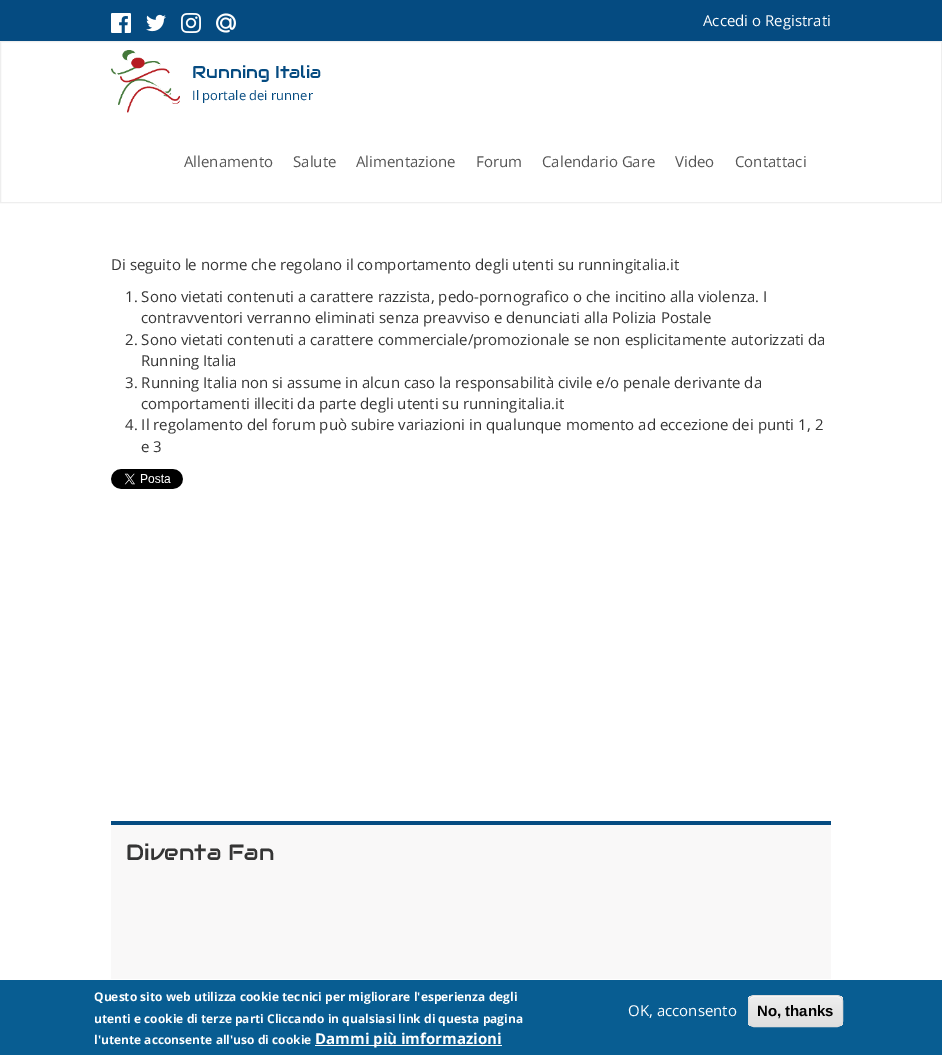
%!PS
<< /PageSize [942 1055] >> setpagedevice
/mt/moveto load def
/li/lineto load def
/ct/curveto load def
/cp/closepath load def
/fl/fill load def
/st/stroke load def
/gs/gsave load def
/gr/grestore load def
/co { dup -16 bitshift 255 div exch dup -8 bitshift 255 and 255 div exch 255 and 255 div setrgbcolor } def
/fn { [ exch dup neg 0 0 3 -1 roll 0 0 ] selectfont } def
/tx { co fn moveto show } def
/bx { co rectfill } def
/rr { 5 dict begin { /r /h /w /y /x } { exch def } forall
  x r add y moveto x w add y 2 copy h add r arct x w add y h add x 1 index r arct
  x y h add x y r arct x y 2 copy exch w add exch r arct closepath end } def
/im { 5 dict begin { /h /w /y /x /name } { exch def } forall
  gsave x y translate w h scale
  w h 8 [w 0 0 h 0 0] name (r) file false 3 colorimage grestore end } def
0 1055 translate 1 -1 scale
4 setmiterlimit
0 0 942 1055 16#FFFFFF bx
0 0 942 41 16#054B81 bx
(media/1.raw) 111 13 20 20 im
(media/2.raw) 146 14 20 18 im
(media/3.raw) 181 13 20 20 im
(media/4.raw) 216 13 20 20 im
16#EEEEEE co
.5 41.5 941 161 rectstroke
(media/5.raw) 111 50 69 63 im
(media/6.raw) 111 469 72 20 im
111 825 720 154 16#F9F8F8 bx
111 821 720 4 16#054B81 bx
0 980 942 75 16#085D92 bx
315 1045 187 1 16#FFFFFF bx
gs
748 995 95 32 6 rr clip newpath
gs 748 996 mt 843 996 li 843 1026 li 748 1026 li cp clip newpath
<< /ShadingType 2 /ColorSpace /DeviceRGB /Coords [796 996 796 1026] /Extend [true true] /Function << /FunctionType 3 /Domain [0 1] /Functions [<< /FunctionType 2 /Domain [0 1] /C0 [.929 .929 .929] /C1 [.929 .929 .929] /N 1 >> << /FunctionType 2 /Domain [0 1] /C0 [.929 .929 .929] /C1 [.875 .875 .875] /N 1 >>] /Bounds [.05] /Encode [0 1 0 1] >> >> shfill gr
gr
754 997 mt 837 997 li 840 997 842 999 842 1002 ct 842 993 829 996 823 996 ct 768 996 li 762 996 749 993 749 1002 ct 749 999 751 997 754 997 ct cp fl
16#DCDCDC co
748.5 995.5 94 31 5.5 rr st
(Accedi o Registrati) 703 26 /OpenSans-Regular 15 16#FFFFFF tx
(Running Italia) 192 78 /Audiowide-Regular 17 16#054B81 tx
(Il portale dei runner) 192 100 /OpenSans-Regular 13 16#054B81 tx
(Allenamento) 184 167 /OpenSans-Regular 15 16#555555 tx
(Salute) 293 167 /OpenSans-Regular 15 16#555555 tx
(Alimentazione) 356 167 /OpenSans-Regular 15 16#555555 tx
(Forum) 476 167 /OpenSans-Regular 15 16#555555 tx
(Calendario Gare) 542 167 /OpenSans-Regular 15 16#555555 tx
(Video) 675 167 /OpenSans-Regular 15 16#555555 tx
(Contattaci) 735 167 /OpenSans-Regular 15 16#555555 tx
(Di seguito le norme che regolano il comportamento degli utenti su runningitalia.it) 111 270 /OpenSans-Regular 15 16#353535 tx
(1. Sono vietati contenuti a carattere razzista, pedo-pornografico o che incitino alla violenza. I) 125 302 /OpenSans-Regular 15 16#353535 tx
(contravventori verranno eliminati senza preavviso e denunciati alla Polizia Postale) 141 323 /OpenSans-Regular 15 16#353535 tx
(2. Sono vietati contenuti a carattere commerciale/promozionale se non esplicitamente autorizzati da) 125 345 /OpenSans-Regular 15 16#353535 tx
(Running Italia) 141 366 /OpenSans-Regular 15 16#353535 tx
(3. Running Italia non si assume in alcun caso la responsabilità civile e/o penale derivante da) 125 388 /OpenSans-Regular 15 16#353535 tx
(comportamenti illeciti da parte degli utenti su runningitalia.it) 141 409 /OpenSans-Regular 15 16#353535 tx
(4. Il regolamento del forum può subire variazioni in qualunque momento ad eccezione dei punti 1, 2) 125 430 /OpenSans-Regular 15 16#353535 tx
(e 3) 141 452 /OpenSans-Regular 15 16#353535 tx
(Diventa Fan) 126 860 /Audiowide-Regular 22 16#353535 tx
(Questo sito web utilizza cookie tecnici per migliorare l'esperienza degli) 94 1001 /OpenSans-Bold 12 16#FFFFFF tx
(utenti e cookie di terze parti Cliccando in qualsiasi link di questa pagina) 94 1023 /OpenSans-Bold 12 16#FFFFFF tx
(l'utente acconsente all'uso di cookie) 94 1044 /OpenSans-Bold 12 16#FFFFFF tx
(Dammi più imformazioni) 315 1044 /OpenSans-Bold 15 16#FFFFFF tx
(OK, acconsento) 628 1016 /OpenSans-Regular 15 16#FFFFFF tx
(No, thanks) 757 1016 /LiberationSans-Bold 15 16#000000 tx
showpage
